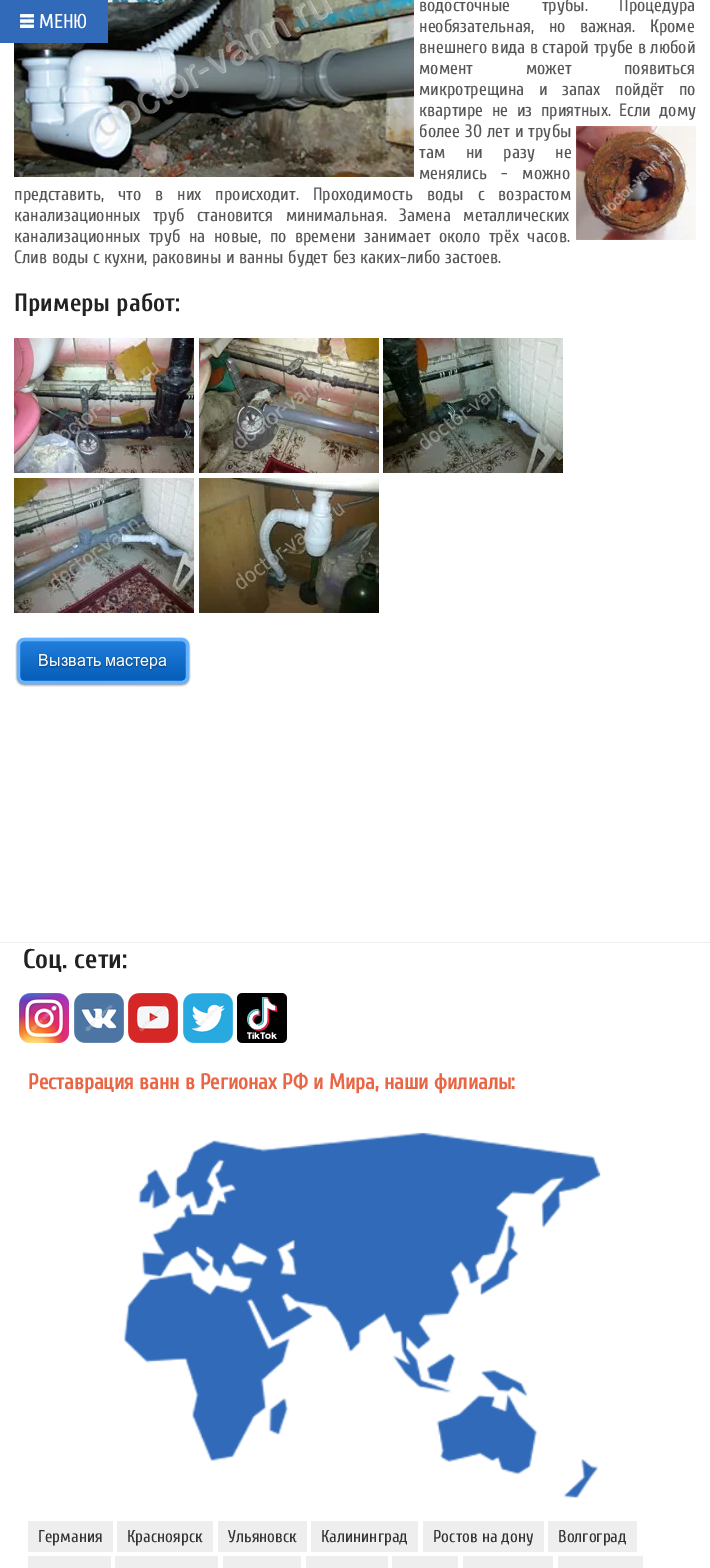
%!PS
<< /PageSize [710 1568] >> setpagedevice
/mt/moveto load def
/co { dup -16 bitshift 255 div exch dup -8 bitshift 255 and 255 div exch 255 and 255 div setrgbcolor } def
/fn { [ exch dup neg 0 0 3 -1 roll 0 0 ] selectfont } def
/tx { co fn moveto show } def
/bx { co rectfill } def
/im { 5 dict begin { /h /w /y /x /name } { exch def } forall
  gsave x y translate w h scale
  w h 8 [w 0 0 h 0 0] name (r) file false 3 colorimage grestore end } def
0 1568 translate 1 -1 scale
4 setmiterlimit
0 0 710 1568 16#FFFFFF bx
(media/1.raw) 14 0 400 177 im
(media/2.raw) 576 126 120 114 im
(media/3.raw) 14 338 180 135 im
(media/4.raw) 199 338 180 135 im
(media/5.raw) 383 338 180 135 im
(media/6.raw) 14 478 180 135 im
(media/7.raw) 199 478 180 135 im
(media/8.raw) 15 637 176 50 im
0 0 108 43 16#306AB8 bx
(media/9.raw) 20 14 14 14 im
0 942 710 1 16#EEEEEE bx
(media/10.raw) 19 993 50 50 im
(media/11.raw) 74 993 50 50 im
(media/12.raw) 128 993 50 50 im
(media/13.raw) 183 993 50 50 im
(media/14.raw) 237 993 50 50 im
(media/15.raw) 124 1132 477 366 im
28 1521 85 31 16#EEEEEE bx
117 1521 96 31 16#EEEEEE bx
218 1521 89 31 16#EEEEEE bx
311 1521 107 31 16#EEEEEE bx
423 1521 121 31 16#EEEEEE bx
548 1521 89 31 16#EEEEEE bx
28 1556 83 12 16#EEEEEE bx
115 1556 103 12 16#EEEEEE bx
223 1556 78 12 16#EEEEEE bx
306 1556 82 12 16#EEEEEE bx
392 1556 66 12 16#EEEEEE bx
463 1556 90 12 16#EEEEEE bx
558 1556 85 12 16#EEEEEE bx
/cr-Regular 18 fn
16#555555 co
419 11 mt 27 0 32 (водосточные трубы. Процедура) widthshow
419 32 mt 10 0 32 (необязательная, но важная. Кроме) widthshow
(внешнего вида в старой трубе в любой) 419 53 /cr-Regular 18 16#555555 tx
419 74 mt 48 0 32 (момент может появиться) widthshow
419 95 mt 10 0 32 (микротрещина и запах пойдёт по) widthshow
419 116 mt 4 0 32 (квартире не из приятных.) widthshow
619 116 mt 4 0 32 (Если дому) widthshow
419 137 mt .5 0 32 (более 30 лет и трубы) widthshow
419 158 mt 16 0 32 (там ни разу не) widthshow
419 179 mt 10 0 32 (менялись - можно) widthshow
14 200 mt 9.5 0 32 (представить, что в них происходит. Проходимость воды с возрастом) widthshow
14 221 mt 8 0 32 (канализационных труб становится минимальная. Замена металлических) widthshow
14 242 mt 4 0 32 (канализационных труб на новые, по времени занимает около трёх часов.) widthshow
(Слив воды с кухни, раковины и ванны будет без каких-либо застоев.) 14 263 /cr-Regular 18 16#555555 tx
(Примеры работ:) 14 311 /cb-Bold 25 16#222222 tx
(МЕНЮ) 39 28 /cr-Regular 20 16#FFFFFF tx
(Соц. сети:) 23 968 /cb-Bold 27 16#222222 tx
(Реставрация ванн в Регионах РФ и Мира, наши филиалы:) 28 1089 /cr-Bold 21.6 16#EA6544 tx
(Германия) 38 1542 /cr-Regular 17 16#333333 tx
(Красноярск) 127 1542 /cr-Regular 17 16#333333 tx
(Ульяновск) 228 1542 /cr-Regular 17 16#333333 tx
(Калининград) 321 1542 /cr-Regular 17 16#333333 tx
(Ростов на дону) 433 1542 /cr-Regular 17 16#333333 tx
(Волгоград) 558 1542 /cr-Regular 17 16#333333 tx
showpage
